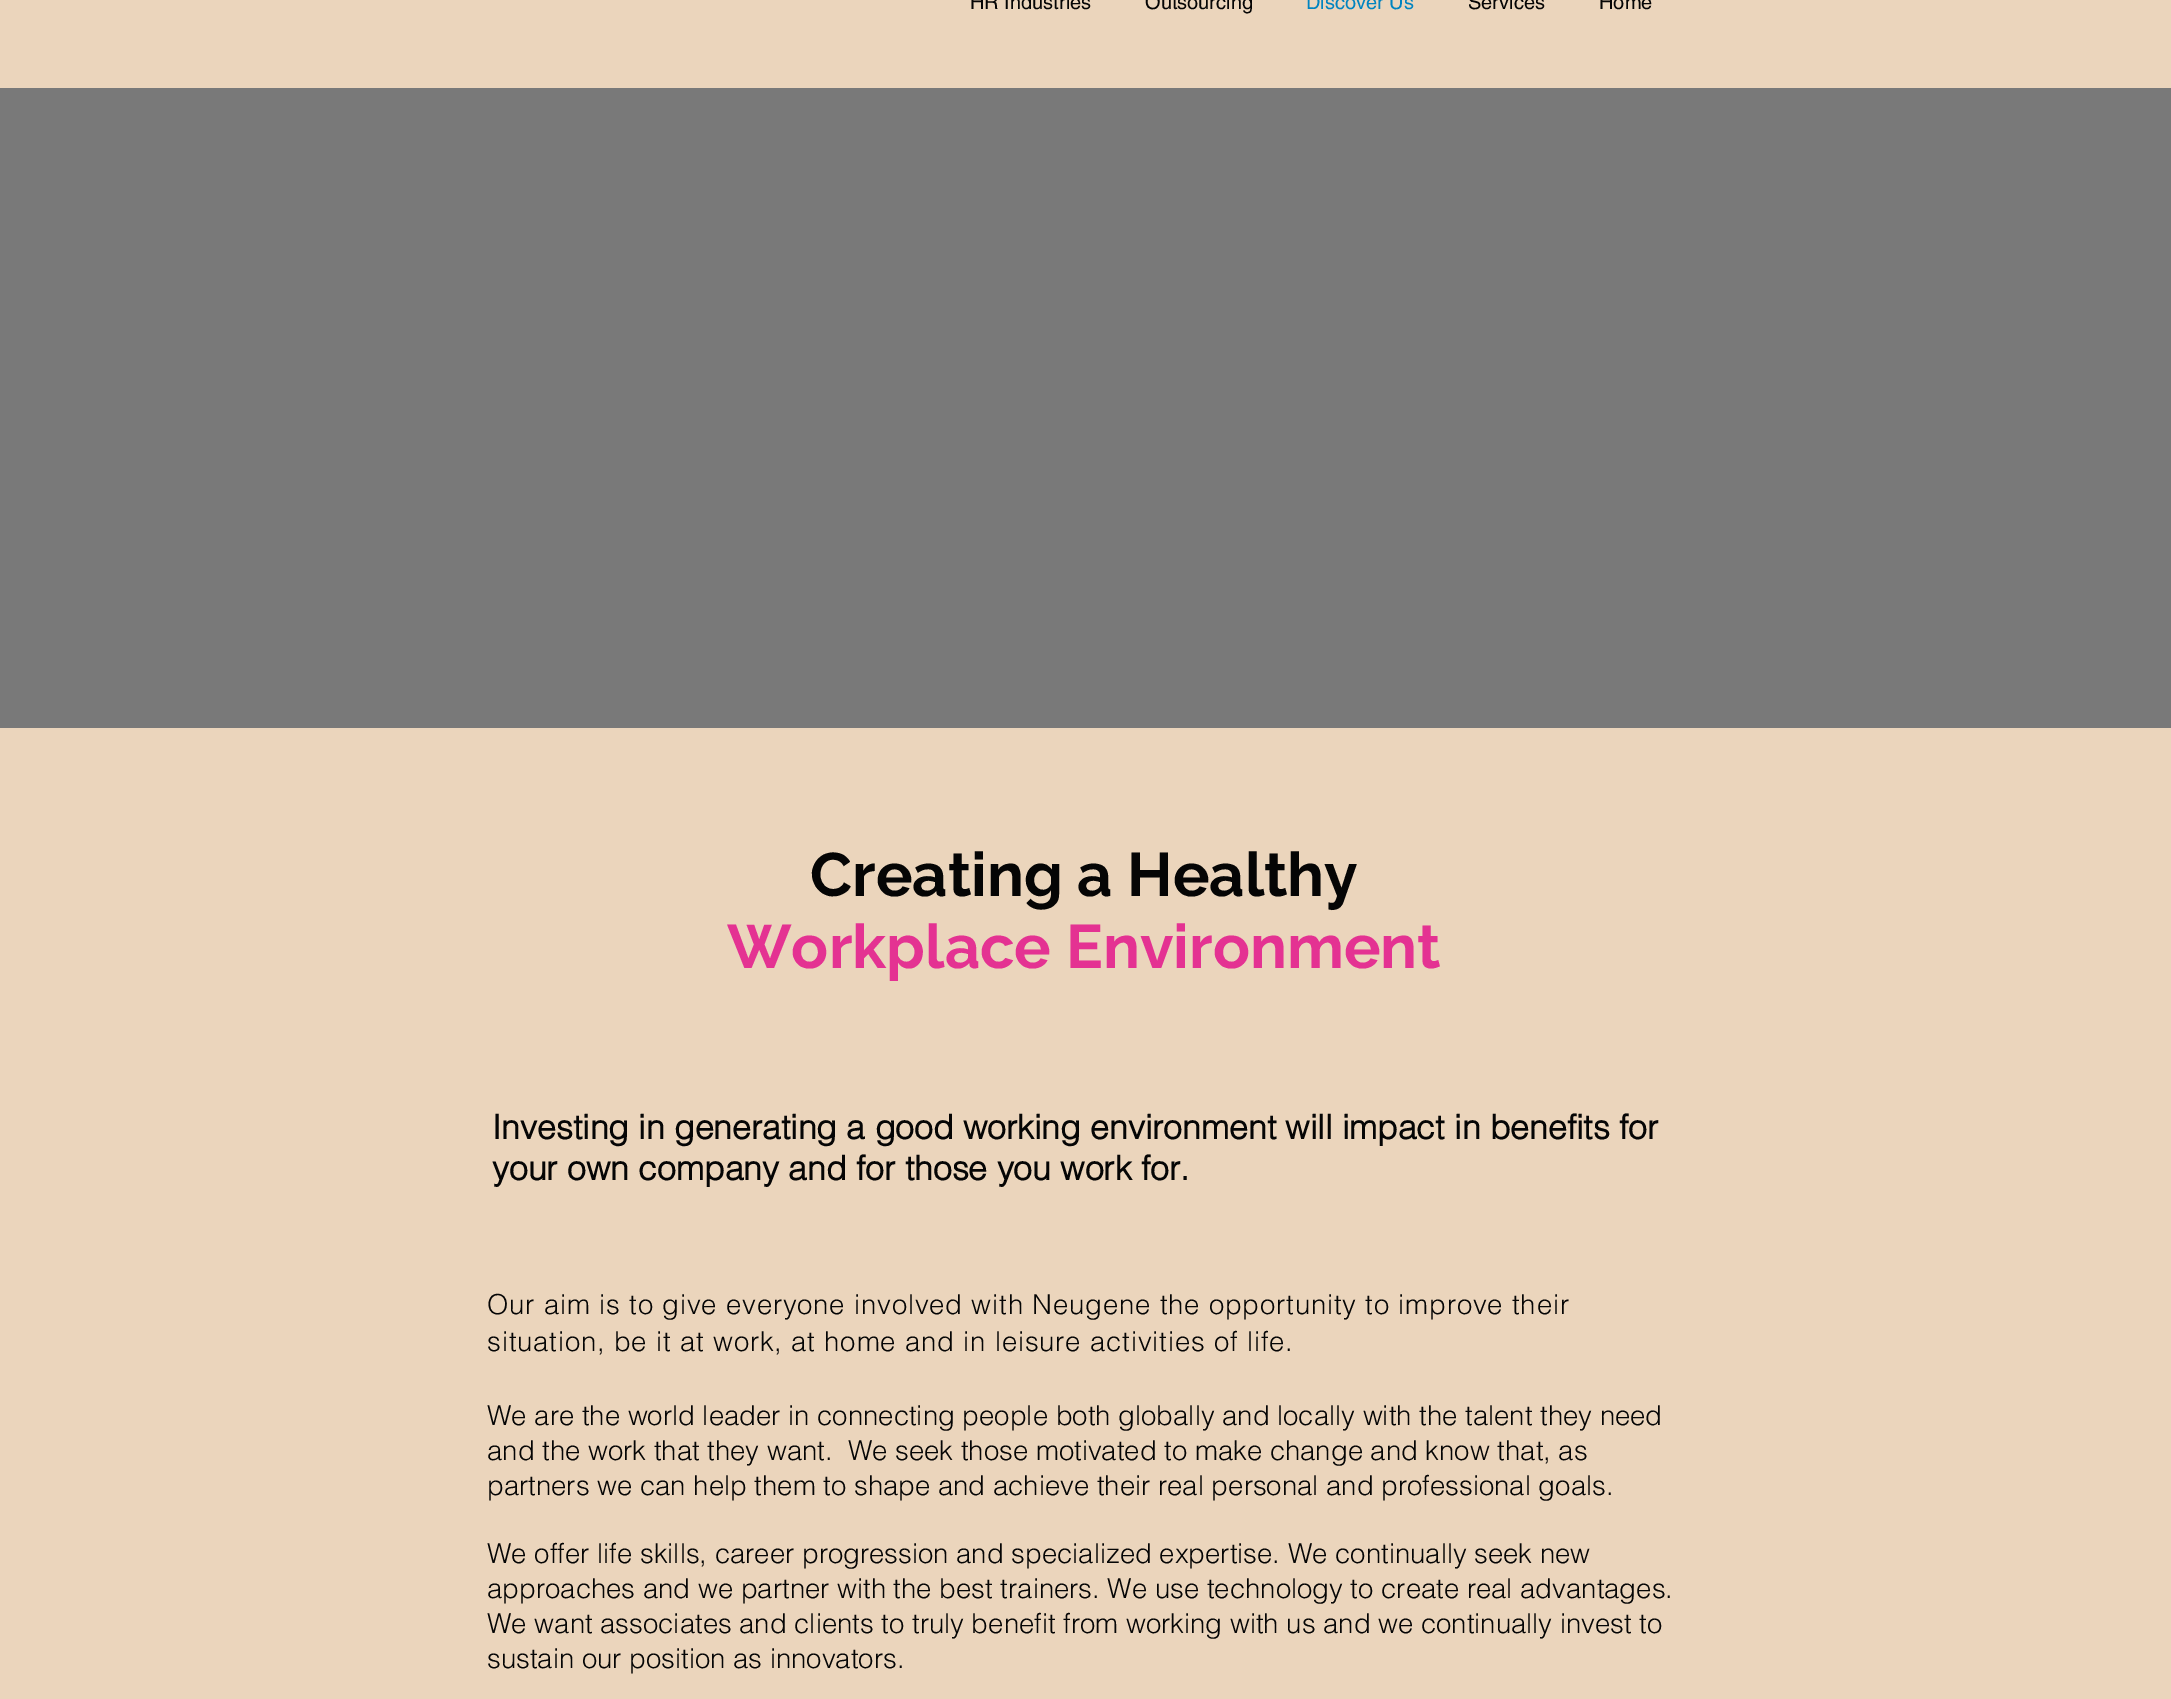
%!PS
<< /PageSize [2171 1699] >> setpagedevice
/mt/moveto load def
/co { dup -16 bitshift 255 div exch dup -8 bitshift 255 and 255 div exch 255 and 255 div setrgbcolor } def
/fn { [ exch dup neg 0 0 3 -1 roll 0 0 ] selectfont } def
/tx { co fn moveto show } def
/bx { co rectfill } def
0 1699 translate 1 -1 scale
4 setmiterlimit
0 0 2171 1699 16#EBD5BC bx
0 88 2171 640 16#797979 bx
(HR Industries) 970 9 /helvetica-Regular 20 16#050505 tx
(Outsourcing) 1145 9 /helvetica-Regular 20 16#050505 tx
(Discover Us) 1306 9 /helvetica-Regular 20 16#0084C1 tx
(Services) 1468 9 /helvetica-Regular 20 16#050505 tx
(Home) 1599 9 /helvetica-Regular 20 16#050505 tx
(Creating a Healthy) 810 896 /Raleway-Bold 61.25 16#050505 tx
(Workplace Environment) 727 968 /Raleway-Bold 61.25 16#E43292 tx
(Investing in generating a good working environment will impact in benefits for) 492 1139 /helvetica-Bold 33.75 16#050505 tx
(your own company and for those you work for.) 492 1180 /helvetica-Bold 33.75 16#050505 tx
/helvetica-Light 27.5 fn
487 1314 mt .83 0 (Our aim is to give everyone involved with Neugene the opportunity to improve their) ashow
487 1351 mt .83 0 (situation, be it at work, at home and in leisure activities of life.) ashow
(We are the world leader in connecting people both globally and locally with the talent they need) 487 1425 /helvetica-Light 27.5 16#050505 tx
(and the work that they want.  We seek those motivated to make change and know that, as) 487 1460 /helvetica-Light 27.5 16#050505 tx
(partners we can help them to shape and achieve their real personal and professional goals.) 487 1495 /helvetica-Light 27.5 16#050505 tx
(We offer life skills, career progression and specialized expertise. We continually seek new) 487 1563 /helvetica-Light 27.5 16#050505 tx
(approaches and we partner with the best trainers. We use technology to create real advantages.) 487 1598 /helvetica-Light 27.5 16#050505 tx
(We want associates and clients to truly benefit from working with us and we continually invest to) 487 1633 /helvetica-Light 27.5 16#050505 tx
(sustain our position as innovators.) 487 1668 /helvetica-Light 27.5 16#050505 tx
showpage
